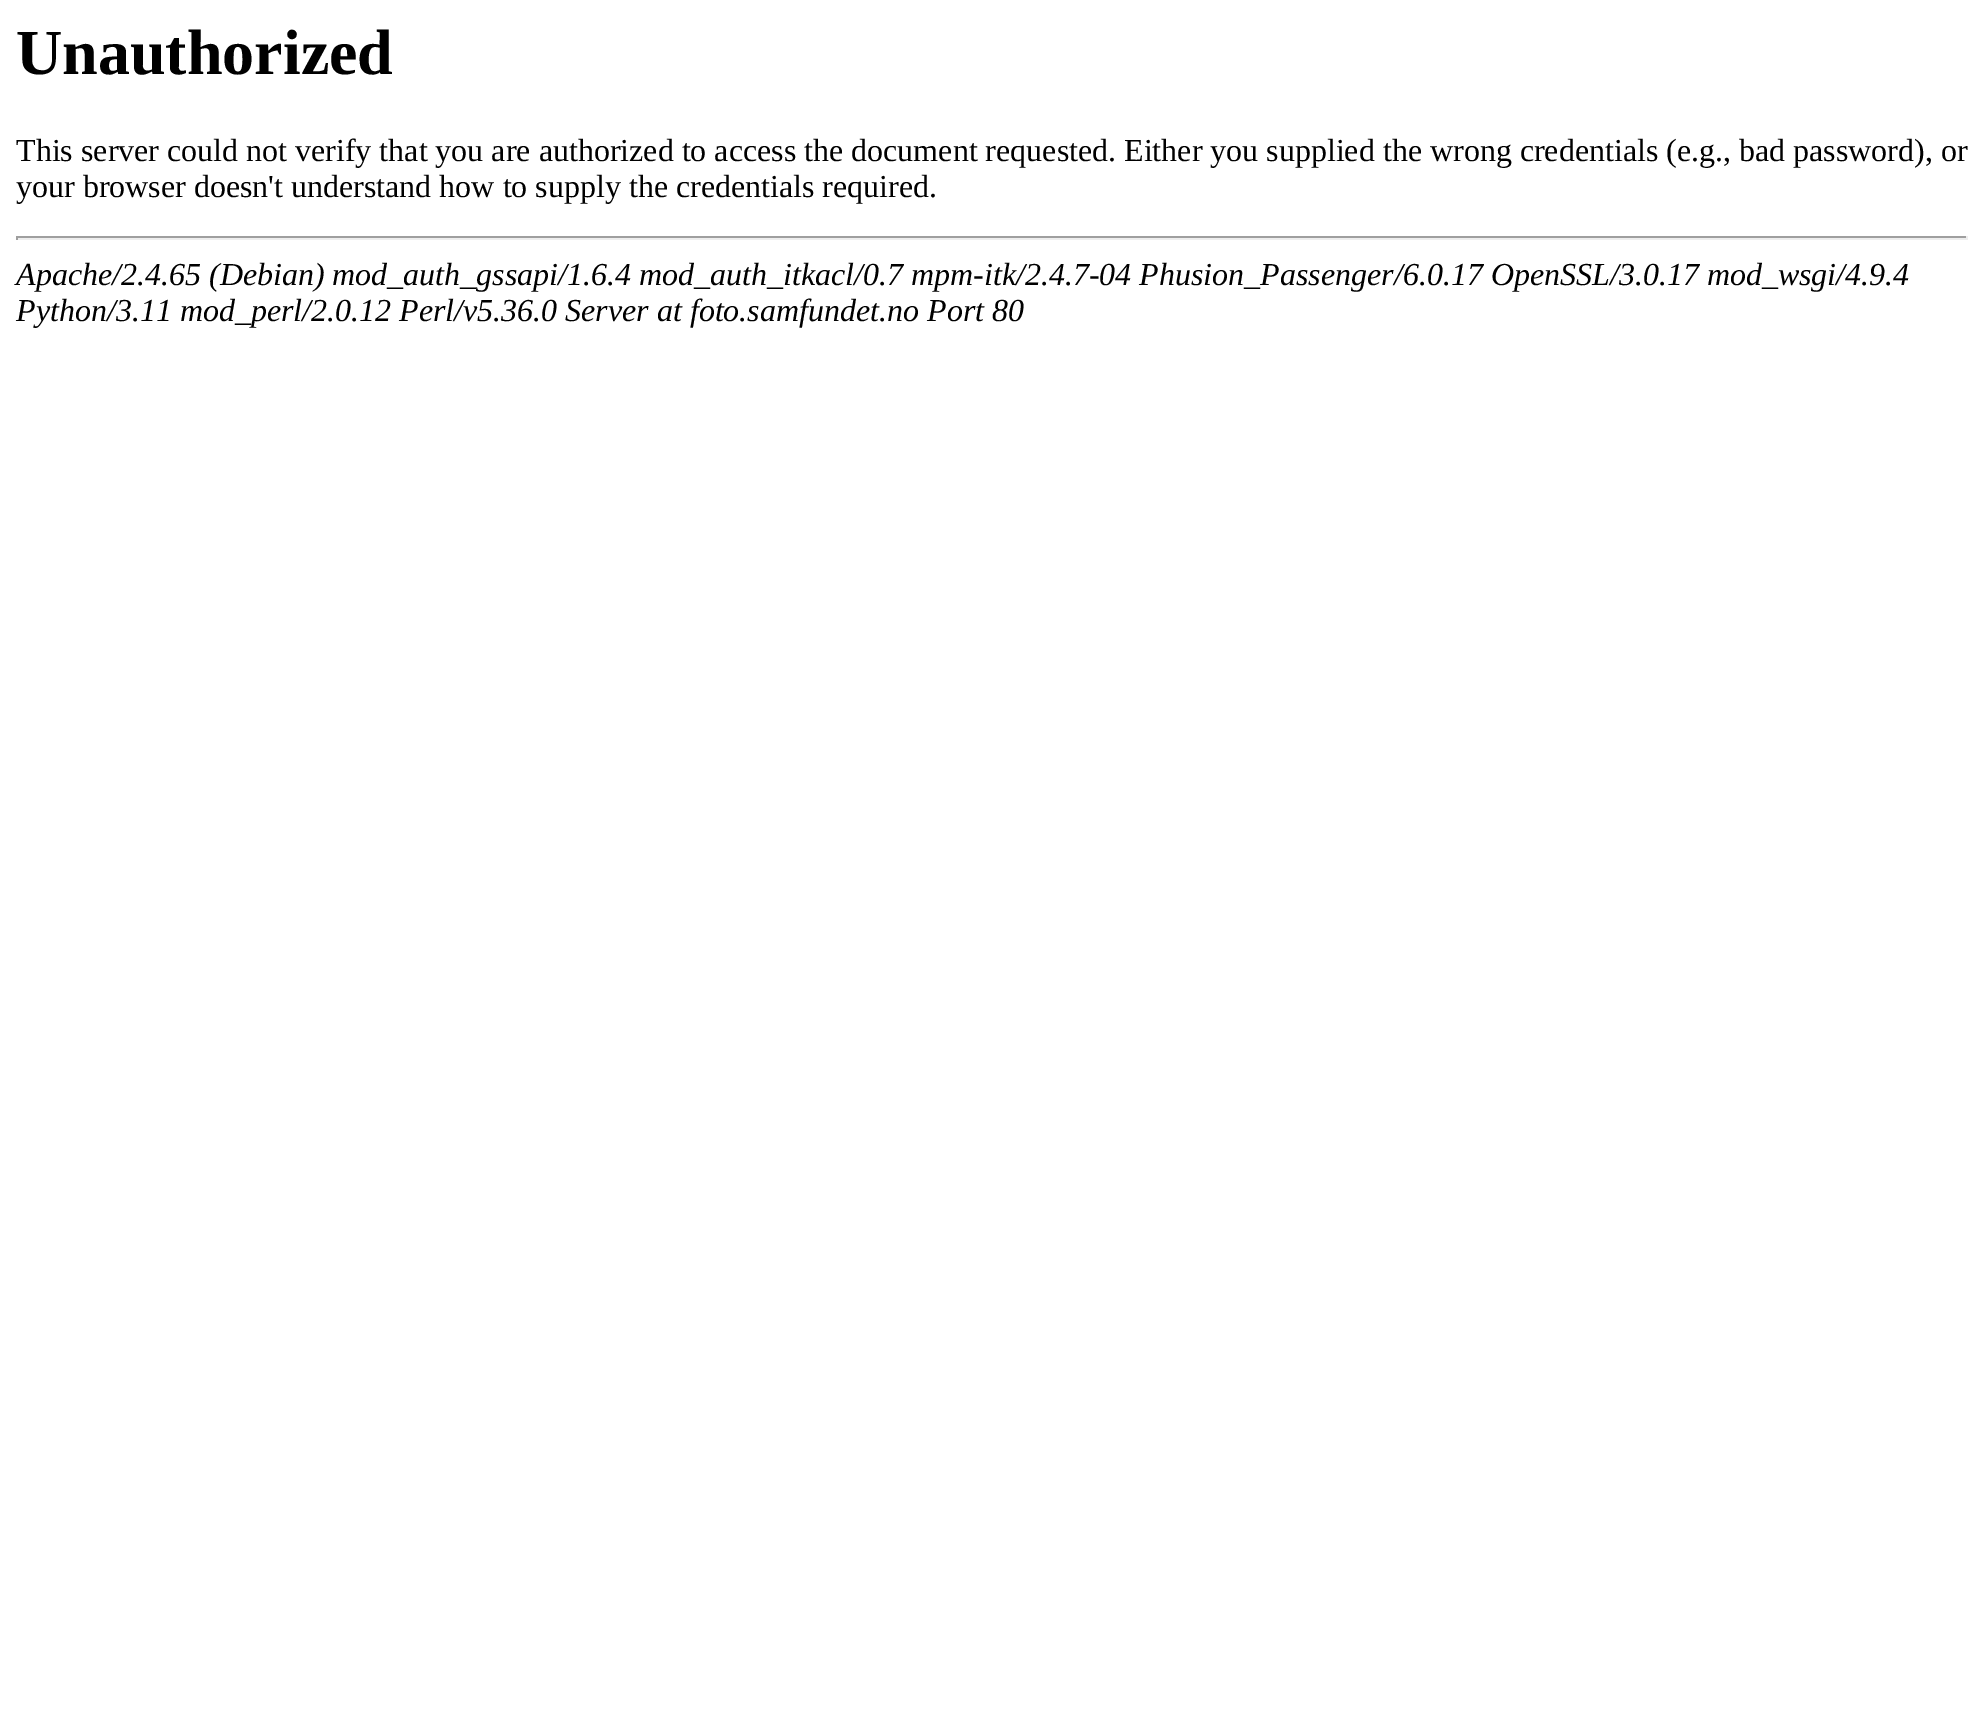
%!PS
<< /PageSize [1983 1719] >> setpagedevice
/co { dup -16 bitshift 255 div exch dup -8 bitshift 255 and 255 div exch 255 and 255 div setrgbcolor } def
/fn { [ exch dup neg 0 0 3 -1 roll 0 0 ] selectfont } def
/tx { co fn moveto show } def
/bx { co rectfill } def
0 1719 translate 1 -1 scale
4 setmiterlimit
0 0 1983 1719 16#FFFFFF bx
16 236 1952 2 16#9F9F9F bx
1966 236 2 4 16#EEEEEE bx
16 238 1952 2 16#EEEEEE bx
16 236 2 4 16#9F9F9F bx
(Unauthorized) 16 74 /LiberationSerif-Bold 64 16#000000 tx
(This server could not verify that you are authorized to access the document requested. Either you supplied the wrong credentials \(e.g., bad password\), or) 16 161 /LiberationSerif-Regular 32 16#000000 tx
(your browser doesn't understand how to supply the credentials required.) 16 197 /LiberationSerif-Regular 32 16#000000 tx
(Apache/2.4.65 \(Debian\) mod_auth_gssapi/1.6.4 mod_auth_itkacl/0.7 mpm-itk/2.4.7-04 Phusion_Passenger/6.0.17 OpenSSL/3.0.17 mod_wsgi/4.9.4) 16 285 /LiberationSerif-Italic 32 16#000000 tx
(Python/3.11 mod_perl/2.0.12 Perl/v5.36.0 Server at foto.samfundet.no Port 80) 16 321 /LiberationSerif-Italic 32 16#000000 tx
showpage
